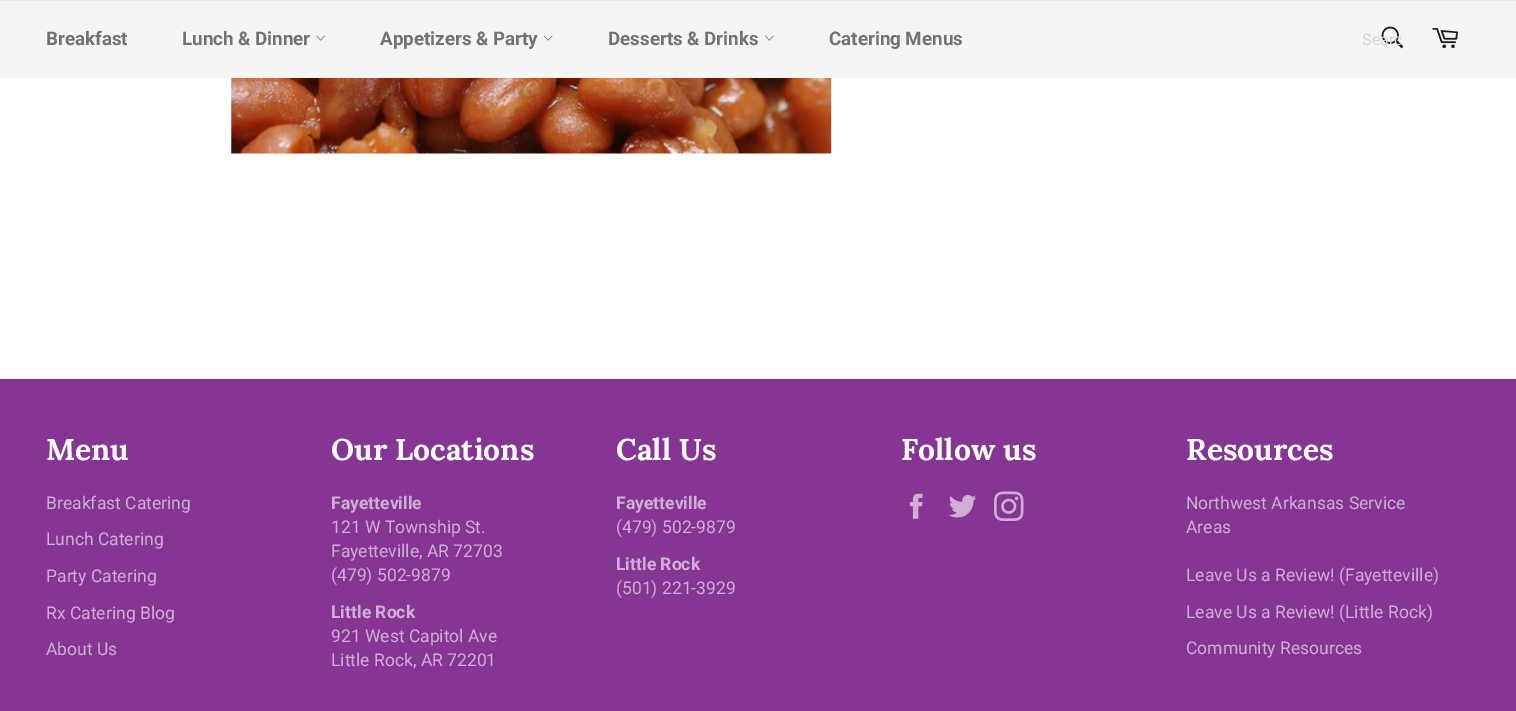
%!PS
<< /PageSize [1516 711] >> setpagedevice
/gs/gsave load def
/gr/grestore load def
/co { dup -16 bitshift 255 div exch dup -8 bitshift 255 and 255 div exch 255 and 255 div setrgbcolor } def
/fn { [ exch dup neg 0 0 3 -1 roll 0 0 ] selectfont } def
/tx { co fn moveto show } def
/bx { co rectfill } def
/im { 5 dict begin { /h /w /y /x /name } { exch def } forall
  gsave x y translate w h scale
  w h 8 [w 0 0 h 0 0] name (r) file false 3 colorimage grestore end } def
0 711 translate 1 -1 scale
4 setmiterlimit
0 0 1516 711 16#FFFFFF bx
0 1 1516 77 16#F5F5F3 bx
0 0 1516 1 16#E9E9E5 bx
(media/1.raw) 316 35 9 6 im
(media/2.raw) 543 35 10 6 im
(media/3.raw) 765 35 9 6 im
(media/4.raw) 1381 26 23 23 im
(media/5.raw) 1432 28 26 21 im
(media/6.raw) 231 78 601 76 im
0 379 1516 332 16#873594 bx
(media/7.raw) 910 493 13 26 im
(media/8.raw) 949 495 28 23 im
(media/9.raw) 994 491 30 30 im
(Breakfast) 46 45 /Roboto-Bold 18.75 16#727271 tx
(Lunch & Dinner) 182 45 /Roboto-Bold 18.75 16#727271 tx
(Appetizers & Party) 380 45 /Roboto-Bold 18.75 16#727271 tx
(Desserts & Drinks) 608 45 /Roboto-Bold 18.75 16#727271 tx
(Catering Menus) 829 45 /Roboto-Bold 18.75 16#727271 tx
gs
1363 30 40 19 rectclip
(Searc) 1362 45 /Roboto-Regular 16 16#D4D4D2 tx
gr
(Menu) 46 460 /Lora-Bold 30 16#FFFFFF tx
(Breakfast Catering) 46 509 /Roboto-Regular 17.5 16#CFAED4 tx
(Lunch Catering) 46 545 /Roboto-Regular 17.5 16#CFAED4 tx
(Party Catering) 46 582 /Roboto-Regular 17.5 16#CFAED4 tx
(Rx Catering Blog) 46 619 /Roboto-Regular 17.5 16#CFAED4 tx
(About Us) 46 655 /Roboto-Regular 17.5 16#CFAED4 tx
(Our Locations) 331 460 /Lora-Bold 30 16#FFFFFF tx
(Fayetteville) 331 509 /Roboto-Bold 17.5 16#CFAED4 tx
(121 W Township St.) 331 533 /Roboto-Regular 17.5 16#CFAED4 tx
(Fayetteville, AR 72703) 331 557 /Roboto-Regular 17.5 16#CFAED4 tx
(\(479\) 502-9879) 331 581 /Roboto-Regular 17.5 16#CFAED4 tx
(Little Rock) 331 618 /Roboto-Bold 17.5 16#CFAED4 tx
(921 West Capitol Ave) 331 642 /Roboto-Regular 17.5 16#CFAED4 tx
(Little Rock, AR 72201) 331 666 /Roboto-Regular 17.5 16#CFAED4 tx
(Call Us) 616 460 /Lora-Bold 30 16#FFFFFF tx
(Fayetteville) 616 509 /Roboto-Bold 17.5 16#CFAED4 tx
(\(479\) 502-9879) 616 533 /Roboto-Regular 17.5 16#CFAED4 tx
(Little Rock) 616 570 /Roboto-Bold 17.5 16#CFAED4 tx
(\(501\) 221-3929) 616 594 /Roboto-Regular 17.5 16#CFAED4 tx
(Follow us) 901 460 /Lora-Bold 30 16#FFFFFF tx
(Resources) 1186 460 /Lora-Bold 30 16#FFFFFF tx
(Northwest Arkansas Service) 1186 509 /Roboto-Regular 17.5 16#CFAED4 tx
(Areas) 1186 533 /Roboto-Regular 17.5 16#CFAED4 tx
(Leave Us a Review! \(Fayetteville\)) 1186 581 /Roboto-Regular 17.5 16#CFAED4 tx
(Leave Us a Review! \(Little Rock\)) 1186 618 /Roboto-Regular 17.5 16#CFAED4 tx
(Community Resources) 1186 654 /Roboto-Regular 17.5 16#CFAED4 tx
showpage
